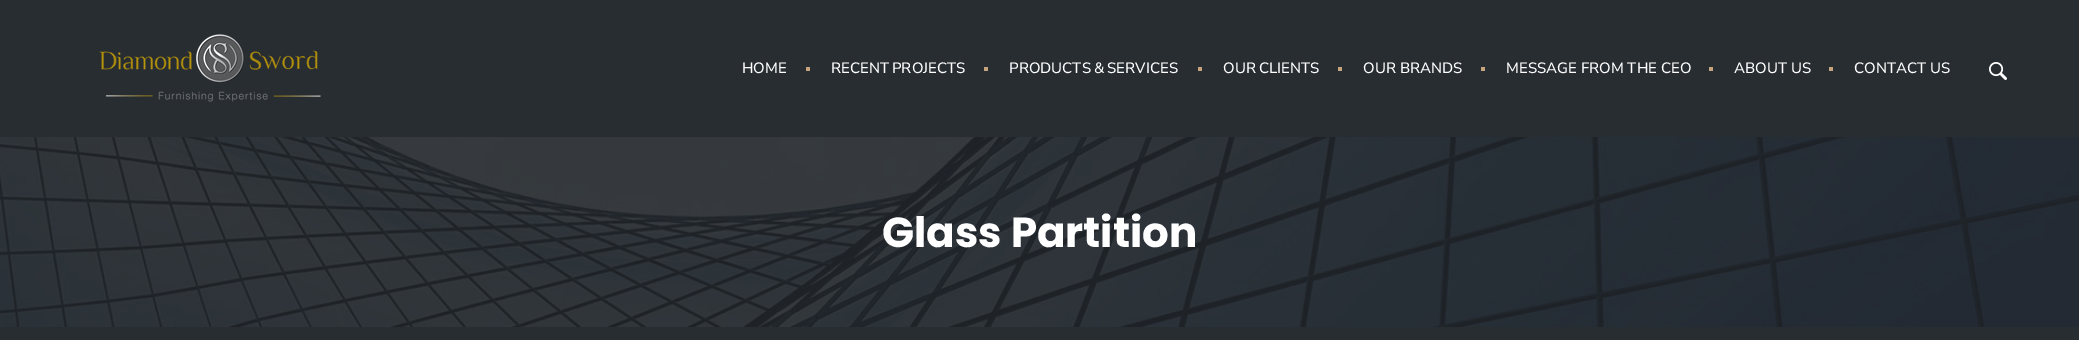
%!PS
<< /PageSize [2079 340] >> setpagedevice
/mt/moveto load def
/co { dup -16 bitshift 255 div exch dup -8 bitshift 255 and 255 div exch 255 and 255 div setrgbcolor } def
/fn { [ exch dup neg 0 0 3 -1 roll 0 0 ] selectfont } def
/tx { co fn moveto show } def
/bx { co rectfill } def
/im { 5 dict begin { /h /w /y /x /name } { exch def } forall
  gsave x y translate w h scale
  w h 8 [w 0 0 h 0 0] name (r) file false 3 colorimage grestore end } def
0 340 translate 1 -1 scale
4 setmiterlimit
0 0 2079 340 16#282D32 bx
(media/1.raw) 99 34 222 68 im
806 67 4 4 16#C6A47E bx
984 67 4 4 16#C6A47E bx
1198 67 4 4 16#C6A47E bx
1338 67 4 4 16#C6A47E bx
1481 67 4 4 16#C6A47E bx
1709 67 4 4 16#C6A47E bx
1829 67 4 4 16#C6A47E bx
(media/2.raw) 1989 62 18 18 im
(media/3.raw) 0 137 2079 190 im
(HOME) 742 73 /NunitoSans-Medium 15 16#FFFFFF tx
831 73 mt -1 0 32 (RECENT PROJECTS) widthshow
1009 73 mt -1 0 32 (PRODUCTS & SERVICES) widthshow
1223 73 mt -1 0 32 (OUR CLIENTS) widthshow
(OUR BRANDS) 1363 73 /NunitoSans-Medium 15 16#FFFFFF tx
(MESSAGE FROM THE CEO) 1506 73 /NunitoSans-Medium 15 16#FFFFFF tx
(ABOUT US) 1734 73 /NunitoSans-Medium 15 16#FFFFFF tx
(CONTACT US) 1854 73 /NunitoSans-Medium 15 16#FFFFFF tx
(Glass Partition) 882 247 /Poppins-Bold 42 16#FFFFFF tx
showpage
